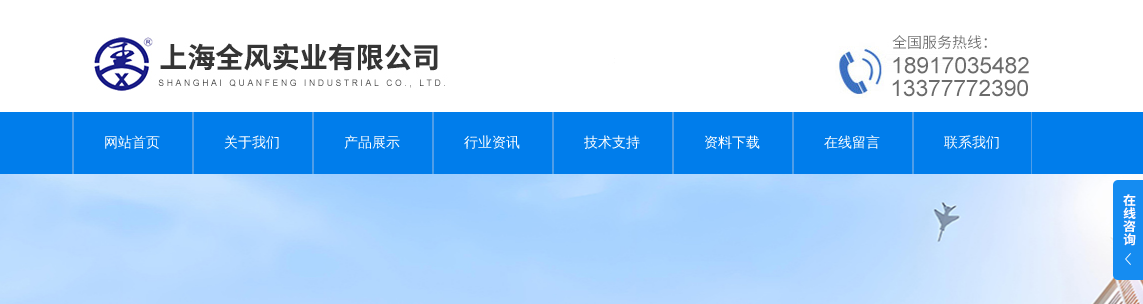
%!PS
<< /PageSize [1143 304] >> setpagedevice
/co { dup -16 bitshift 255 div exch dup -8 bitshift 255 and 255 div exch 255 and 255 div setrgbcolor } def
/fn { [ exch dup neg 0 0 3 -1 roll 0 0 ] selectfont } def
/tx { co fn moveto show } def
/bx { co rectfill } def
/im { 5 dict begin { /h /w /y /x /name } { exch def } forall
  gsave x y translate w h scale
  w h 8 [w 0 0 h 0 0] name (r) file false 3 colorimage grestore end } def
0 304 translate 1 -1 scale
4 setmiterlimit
0 0 1143 304 16#FFFFFF bx
(media/1.raw) 90 37 525 54 im
(media/2.raw) 835 35 194 63 im
0 112 1143 62 16#007DEB bx
(media/3.raw) 72 112 2 62 im
(media/3.raw) 192 112 2 62 im
(media/3.raw) 312 112 2 62 im
(media/3.raw) 432 112 2 62 im
(media/3.raw) 552 112 2 62 im
(media/3.raw) 672 112 2 62 im
(media/3.raw) 792 112 2 62 im
(media/3.raw) 912 112 2 62 im
(media/4.raw) 1031 112 1 62 im
(media/5.raw) 0 174 1143 130 im
(media/6.raw) 1113 180 30 100 im
(网站首页) 104 147 /WenQuanYiZenHei-Medium 14 16#FFFFFF tx
(关于我们) 224 147 /WenQuanYiZenHei-Medium 14 16#FFFFFF tx
(产品展示) 344 147 /WenQuanYiZenHei-Medium 14 16#FFFFFF tx
(行业资讯) 464 147 /WenQuanYiZenHei-Medium 14 16#FFFFFF tx
(技术支持) 584 147 /WenQuanYiZenHei-Medium 14 16#FFFFFF tx
(资料下载) 704 147 /WenQuanYiZenHei-Medium 14 16#FFFFFF tx
(在线留言) 824 147 /WenQuanYiZenHei-Medium 14 16#FFFFFF tx
(联系我们) 944 147 /WenQuanYiZenHei-Medium 14 16#FFFFFF tx
showpage
